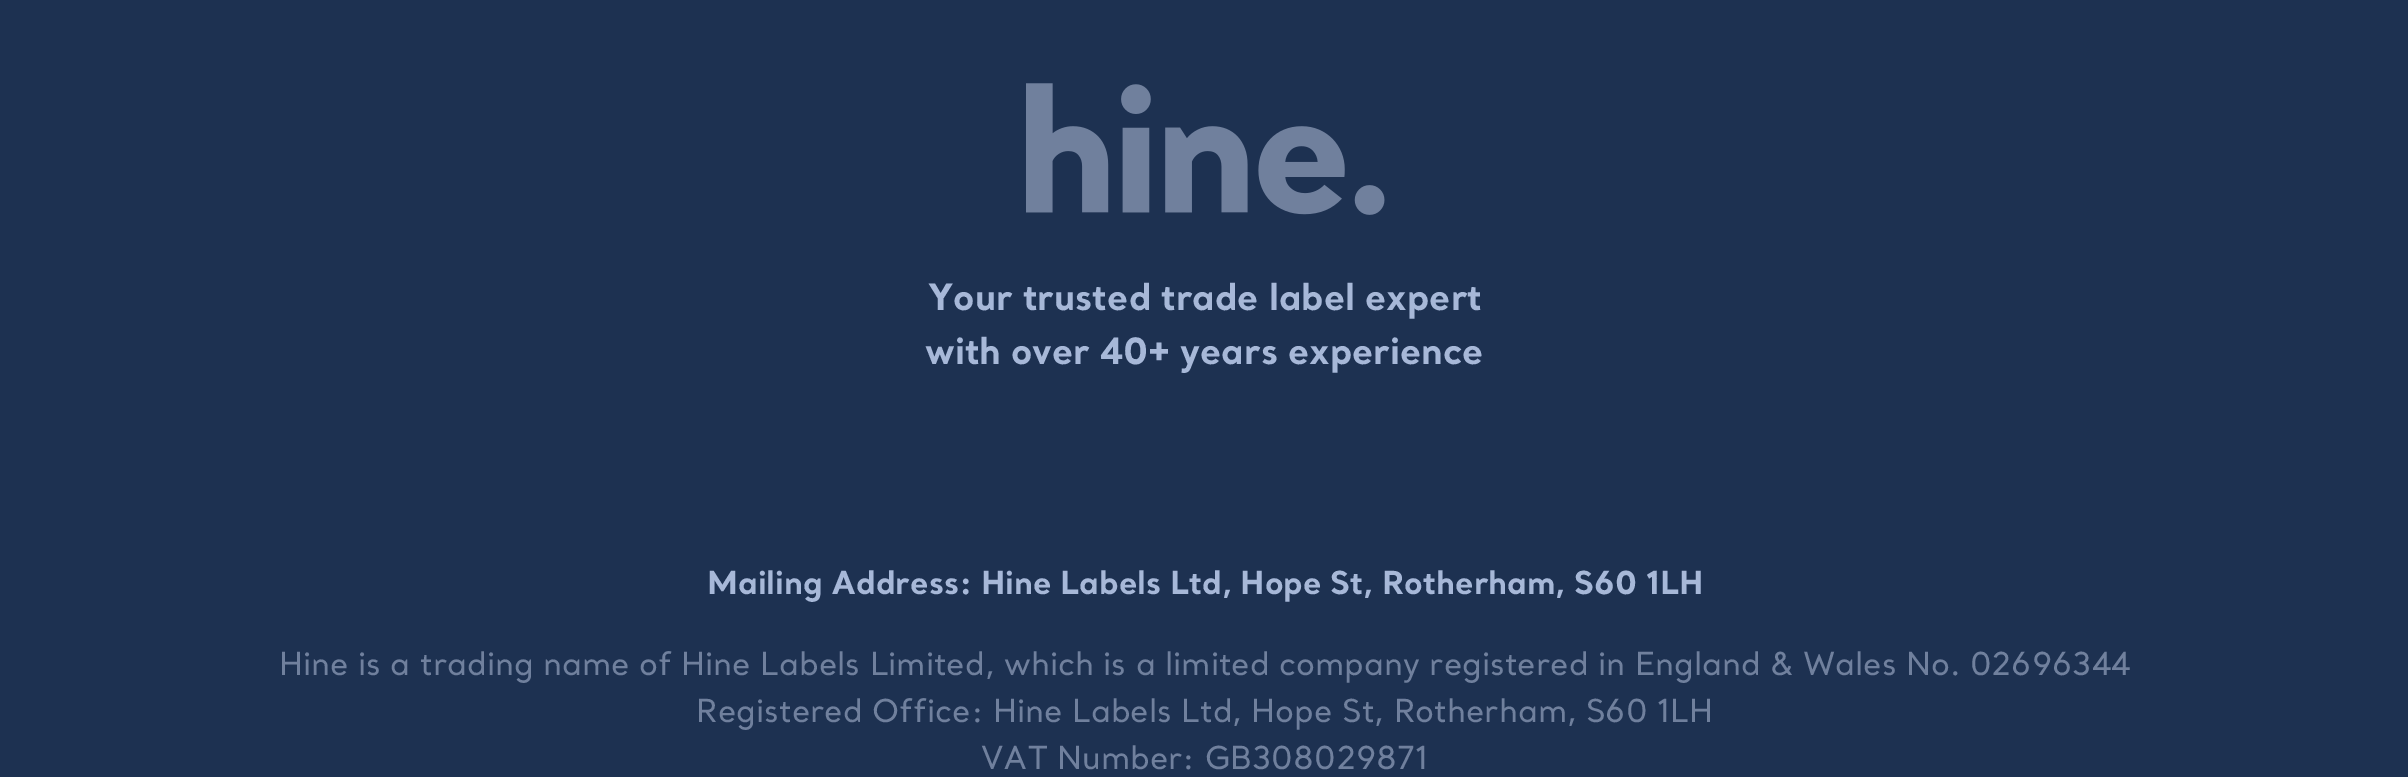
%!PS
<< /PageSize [2408 777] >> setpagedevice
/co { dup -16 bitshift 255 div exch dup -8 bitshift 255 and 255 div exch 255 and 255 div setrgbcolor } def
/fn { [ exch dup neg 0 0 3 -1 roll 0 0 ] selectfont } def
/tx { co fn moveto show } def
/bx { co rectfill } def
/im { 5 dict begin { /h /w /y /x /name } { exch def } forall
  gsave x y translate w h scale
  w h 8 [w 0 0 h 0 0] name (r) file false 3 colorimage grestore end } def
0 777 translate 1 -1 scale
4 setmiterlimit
0 0 2408 777 16#1D3151 bx
(media/1.raw) 1026 83 359 132 im
(Your trusted trade label expert) 928 310 /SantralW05-Bold 36 16#A7B8D8 tx
(with over 40+ years experience) 925 364 /SantralW05-Bold 36 16#A7B8D8 tx
(Mailing Address: Hine Labels Ltd, Hope St, Rotherham, S60 1LH) 707 594 /SantralW05-Bold 31.5 16#A7B8D8 tx
(Hine is a trading name of Hine Labels Limited, which is a limited company registered in England & Wales No. 02696344) 279 675 /SantralW05-Medium 31.5 16#70809D tx
(Registered Office: Hine Labels Ltd, Hope St, Rotherham, S60 1LH) 696 722 /SantralW05-Medium 31.5 16#70809D tx
(VAT Number: GB308029871) 981 769 /SantralW05-Medium 31.5 16#70809D tx
showpage
